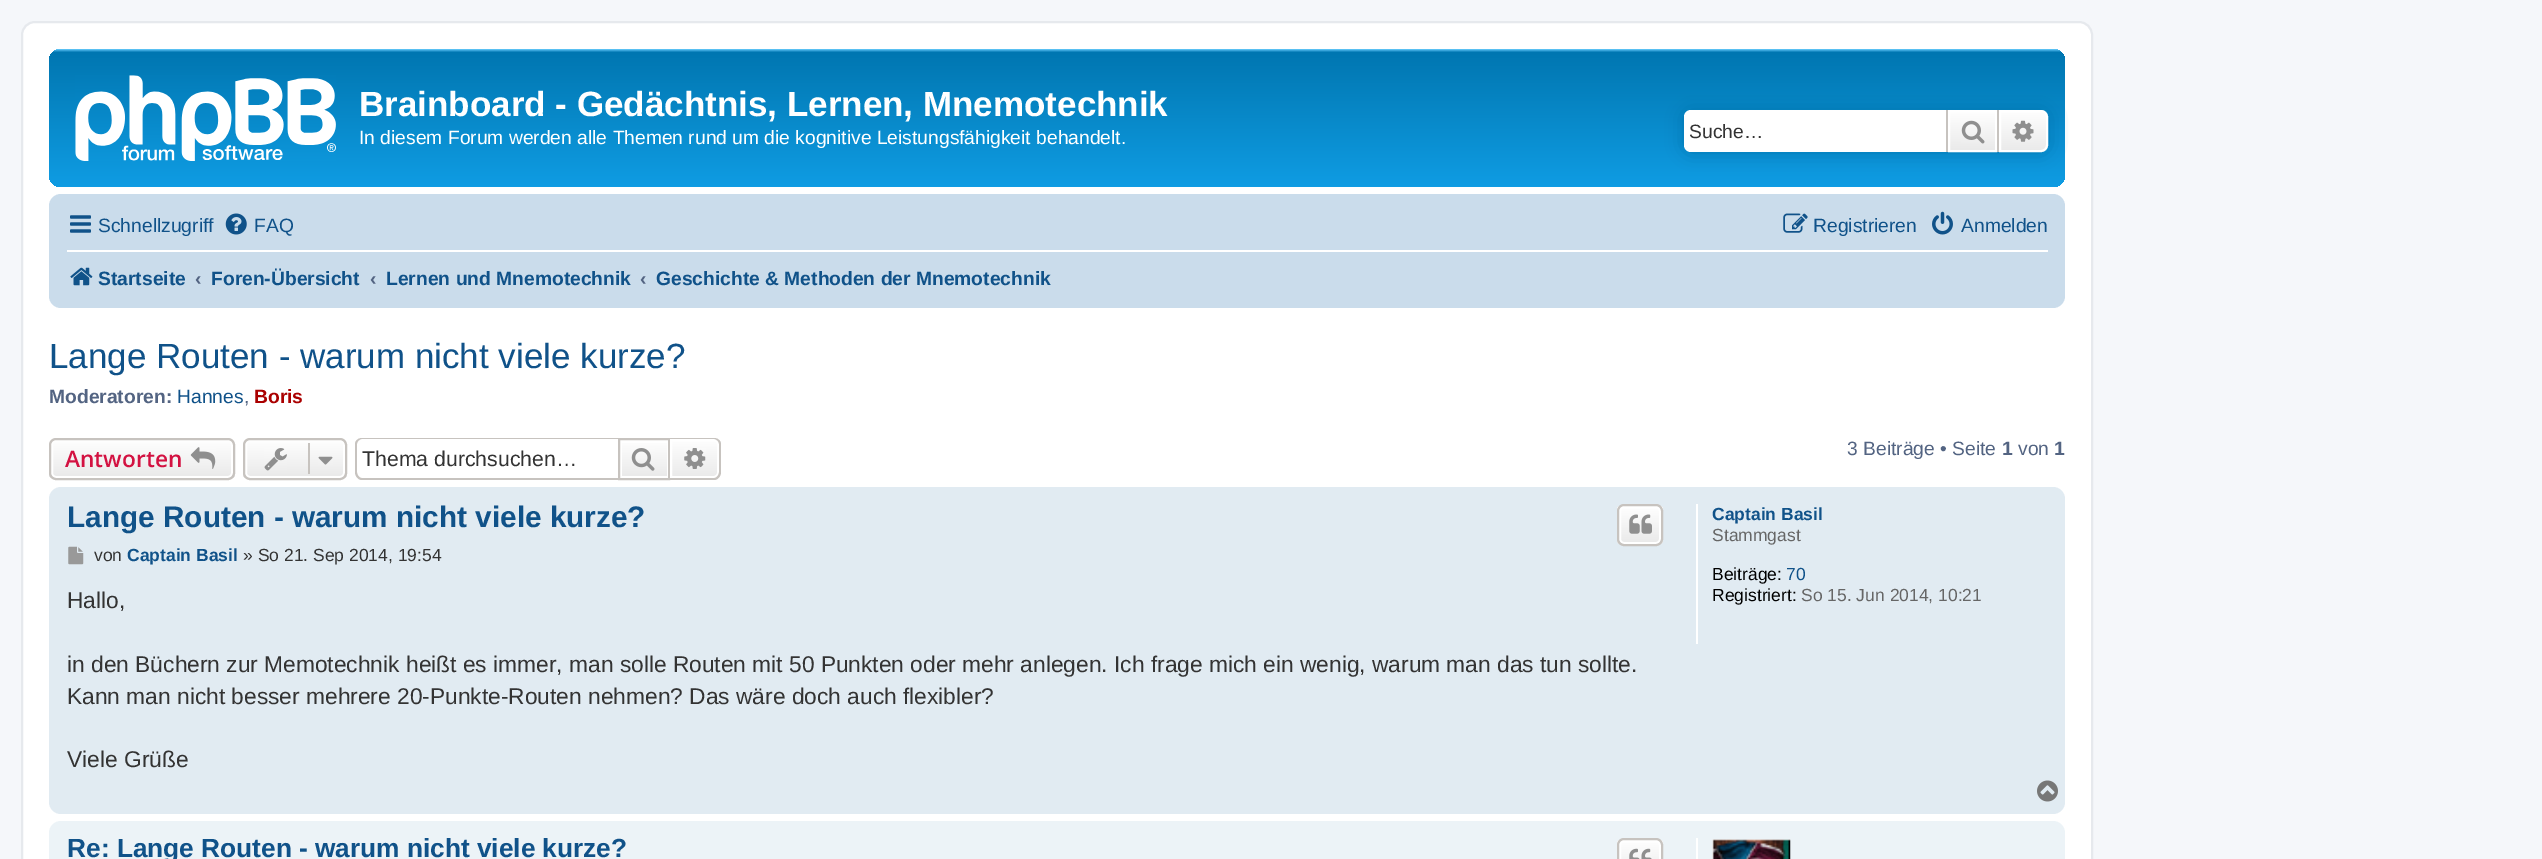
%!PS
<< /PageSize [2542 859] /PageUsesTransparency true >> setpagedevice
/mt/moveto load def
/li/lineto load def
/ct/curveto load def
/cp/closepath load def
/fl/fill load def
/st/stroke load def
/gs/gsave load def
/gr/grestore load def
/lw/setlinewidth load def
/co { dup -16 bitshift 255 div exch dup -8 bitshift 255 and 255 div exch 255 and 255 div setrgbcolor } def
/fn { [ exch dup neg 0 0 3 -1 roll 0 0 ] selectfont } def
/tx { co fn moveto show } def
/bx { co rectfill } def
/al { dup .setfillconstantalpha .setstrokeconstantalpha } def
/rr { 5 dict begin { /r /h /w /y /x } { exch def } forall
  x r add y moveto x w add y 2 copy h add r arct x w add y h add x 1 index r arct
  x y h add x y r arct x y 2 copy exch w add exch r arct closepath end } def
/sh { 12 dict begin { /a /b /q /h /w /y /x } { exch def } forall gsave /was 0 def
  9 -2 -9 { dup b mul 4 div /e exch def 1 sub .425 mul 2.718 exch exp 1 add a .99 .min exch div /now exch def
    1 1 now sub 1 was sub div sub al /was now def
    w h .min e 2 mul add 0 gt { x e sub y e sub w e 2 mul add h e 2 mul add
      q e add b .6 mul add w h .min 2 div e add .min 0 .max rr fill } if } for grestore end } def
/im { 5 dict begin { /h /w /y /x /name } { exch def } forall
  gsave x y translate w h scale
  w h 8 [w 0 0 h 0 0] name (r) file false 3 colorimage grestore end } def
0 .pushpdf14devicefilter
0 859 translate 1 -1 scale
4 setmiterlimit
0 0 2542 859 16#F5F7FA bx
16#FFFFFF co
22 22 2070 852 13 rr gs fl gr
16#E6E9ED co
2 lw
st
gs 49 49 2016 138 12 rr clip newpath
<< /ShadingType 2 /ColorSpace /DeviceRGB /Coords [1057 49 1057 210] /Extend [true true] /Function << /FunctionType 3 /Domain [0 1] /Functions [<< /FunctionType 2 /Domain [0 1] /C0 [.416 .808 1] /C1 [0 .463 .694] /N 1 >> << /FunctionType 2 /Domain [0 1] /C0 [0 .463 .694] /C1 [.071 .639 .922] /N 1 >>] /Bounds [.02] /Encode [0 1 0 1] >> >> shfill gr
(media/1.raw) 75 75 261 86 im
16#0075B0 co
1684 110 364 42 7 9 1 sh
16#FFFFFF co
1691 110 mt 1946 110 li 1946 152 li 1691 152 li 1687 152 1684 149 1684 145 ct 1684 117 li 1684 113 1687 110 1691 110 ct cp fl
gs 1950 112 mt 1995 112 li 1995 150 li 1950 150 li cp clip newpath
<< /ShadingType 2 /ColorSpace /DeviceRGB /Coords [1972 110 1972 152] /Extend [true true] /Function << /FunctionType 2 /Domain [0 1] /C0 [1 1 1] /C1 [.914 .914 .914] /N 1 >> >> shfill gr
1949 111 47 40 rectstroke
1997 110 2 42 16#C7C3BF bx
1946 110 2 42 16#C7C3BF bx
(media/2.raw) 1961 120 24 24 im
gs 2000 111 mt 2041 111 li 2044.5 111 2047 113.5 2047 117 ct 2047 145 li 2047 148.5 2044.5 151 2041 151 ct 2000 151 li cp clip newpath
<< /ShadingType 2 /ColorSpace /DeviceRGB /Coords [2023 110 2023 152] /Extend [true true] /Function << /FunctionType 2 /Domain [0 1] /C0 [1 1 1] /C1 [.914 .914 .914] /N 1 >> >> shfill gr
16#FFFFFF co
2000 111 mt 2041 111 li 2044.5 111 2047 113.5 2047 117 ct 2047 145 li 2047 148.5 2044.5 151 2041 151 ct 2000 151 li cp st
(media/3.raw) 2012 120 22 22 im
16#CADCEB co
49 194 2016 114 12 rr fl
(media/4.raw) 70 215 21 18 im
(media/5.raw) 225 213 22 22 im
(media/6.raw) 1783 213 25 20 im
(media/7.raw) 1932 211 21 24 im
67 250 1981 2 16#FFFFFF bx
(media/8.raw) 70 267 23 19 im
gs
49 438 186 42 7 rr clip newpath
gs 49 439 mt 235 439 li 235 478 li 49 478 li cp clip newpath
<< /ShadingType 2 /ColorSpace /DeviceRGB /Coords [142 439 142 478] /Extend [true true] /Function << /FunctionType 2 /Domain [0 1] /C0 [1 1 1] /C1 [.914 .914 .914] /N 1 >> >> shfill gr
gr
52 440 180 37 4 rr st
16#C7C3BF co
50 439 184 40 6 rr st
(media/9.raw) 190 447 26 22 im
gs
243 438 104 42 7 rr clip newpath
gs 243 439 mt 347 439 li 347 478 li 243 478 li cp clip newpath
<< /ShadingType 2 /ColorSpace /DeviceRGB /Coords [295 439 295 478] /Extend [true true] /Function << /FunctionType 2 /Domain [0 1] /C0 [1 1 1] /C1 [.914 .914 .914] /N 1 >> >> shfill gr
gr
16#FFFFFF co
246 440 98 37 4 rr st
16#C7C3BF co
244 439 102 40 6 rr st
(media/10.raw) 264 448 23 23 im
308 443 2 31 16#C7C3BF bx
(media/11.raw) 318 456 15 9 im
362 438 mt 618 438 li 618 480 li 362 480 li 358 480 355 476 355 472 ct 355 444 li 355 441 358 438 362 438 ct cp 362 439 mt 618 439 li 618 478 li 362 478 li 359 478 357 475 357 472 ct 357 444 li 357 442 359 439 362 439 ct cp eofill
gs 622 443 mt 667 443 li 667 476 li 622 476 li cp clip newpath
<< /ShadingType 2 /ColorSpace /DeviceRGB /Coords [644 439 644 478] /Extend [true true] /Function << /FunctionType 2 /Domain [0 1] /C0 [1 1 1] /C1 [.914 .914 .914] /N 1 >> >> shfill gr
619 439 50 40 rectstroke
(media/12.raw) 631 448 24 23 im
gs 671 440 mt 714 440 li 716 440 718 442 718 444 ct 718 473 li 718 475 716 477 714 477 ct 671 477 li cp clip newpath
<< /ShadingType 2 /ColorSpace /DeviceRGB /Coords [695 439 695 478] /Extend [true true] /Function << /FunctionType 2 /Domain [0 1] /C0 [1 1 1] /C1 [.914 .914 .914] /N 1 >> >> shfill gr
16#FFFFFF co
671 440 mt 714 440 li 716 440 718 442 718 444 ct 718 473 li 718 475 716 477 714 477 ct 671 477 li cp st
16#C7C3BF co
670 438 mt 714 438 li 718 438 721 441 721 444 ct 721 472 li 721 476 718 480 714 480 ct 670 480 li cp 670 439 mt 714 439 li 717 439 719 442 719 444 ct 719 472 li 719 475 717 478 714 478 ct 670 478 li cp eofill
(media/13.raw) 684 448 22 21 im
16#E1EBF2 co
49 487 2016 327 12 rr fl
gs
1617 504 46 42 7 rr clip newpath
gs 1617 506 mt 1663 506 li 1663 544 li 1617 544 li cp clip newpath
<< /ShadingType 2 /ColorSpace /DeviceRGB /Coords [1640 506 1640 544] /Extend [true true] /Function << /FunctionType 2 /Domain [0 1] /C0 [1 1 1] /C1 [.914 .914 .914] /N 1 >> >> shfill gr
gr
16#FFFFFF co
1620 507 40 36 4 rr st
16#C7C3BF co
1618 505 44 40 6 rr st
(media/14.raw) 1629 514 23 20 im
(media/15.raw) 68 546 16 19 im
1696 504 2 140 16#FFFFFF bx
(media/16.raw) 2037 780 21 22 im
16#ECF3F7 co
49 821 2016 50 12 rr fl
gs
1617 838 46 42 7 rr clip newpath
gs 1617 840 mt 1663 840 li 1663 859 li 1617 859 li cp clip newpath
<< /ShadingType 2 /ColorSpace /DeviceRGB /Coords [1640 840 1640 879] /Extend [true true] /Function << /FunctionType 2 /Domain [0 1] /C0 [1 1 1] /C1 [.914 .914 .914] /N 1 >> >> shfill gr
gr
16#FFFFFF co
1620 841 40 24 4 rr st
16#C7C3BF co
1618 839 44 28 6 rr st
(media/17.raw) 1629 848 23 11 im
1696 838 2 21 16#FFFFFF bx
(media/18.raw) 1712 839 79 20 im
(Brainboard - Gedächtnis, Lernen, Mnemotechnik) 359 116 /LiberationSans-Bold 35 16#FFFFFF tx
(In diesem Forum werden alle Themen rund um die kognitive Leistungsfähigkeit behandelt.) 359 144 /LiberationSans-Regular 19.25 16#FFFFFF tx
(Suche…) 1689 138 /LiberationSans-Regular 19.25 16#333333 tx
(Schnellzugriff) 98 232 /LiberationSans-Regular 19.25 16#105289 tx
(FAQ) 254 232 /LiberationSans-Regular 19.25 16#105289 tx
(Registrieren) 1813 232 /LiberationSans-Regular 19.25 16#105289 tx
(Anmelden) 1961 232 /LiberationSans-Regular 19.25 16#105289 tx
(Startseite) 98 285 /LiberationSans-Bold 19.25 16#105289 tx
(‹) 195 285 /LiberationSans-Bold 19.25 16#536482 tx
(Foren-Übersicht) 211 285 /LiberationSans-Bold 19.25 16#105289 tx
(‹) 370 285 /LiberationSans-Bold 19.25 16#536482 tx
(Lernen und Mnemotechnik) 386 285 /LiberationSans-Bold 19.25 16#105289 tx
(‹) 640 285 /LiberationSans-Bold 19.25 16#536482 tx
(Geschichte & Methoden der Mnemotechnik) 656 285 /LiberationSans-Bold 19.25 16#105289 tx
(Lange Routen - warum nicht viele kurze?) 49 368 /LiberationSans-Regular 35 16#105289 tx
(Moderatoren:) 49 403 /LiberationSans-Bold 19.25 16#536482 tx
(Hannes) 177 403 /LiberationSans-Regular 19.25 16#105289 tx
(,) 244 403 /LiberationSans-Regular 19.25 16#536482 tx
(Boris) 254 403 /LiberationSans-Bold 19.25 16#AA0000 tx
(Antworten) 65 467 /OpenSans-SemiBold 22.75 16#D31141 tx
(Thema durchsuchen…) 362 466 /LiberationSans-Regular 21.25 16#333333 tx
(3 Beiträge • Seite) 1847 455 /LiberationSans-Regular 19.25 16#536482 tx
(1) 2002 455 /LiberationSans-Bold 19.25 16#536482 tx
(von) 2018 455 /LiberationSans-Regular 19.25 16#536482 tx
(1) 2054 455 /LiberationSans-Bold 19.25 16#536482 tx
(Lange Routen - warum nicht viele kurze?) 67 527 /LiberationSans-Bold 29.75 16#105289 tx
(von) 94 561 /LiberationSans-Regular 17.5 16#333333 tx
(Captain Basil) 127 561 /LiberationSans-Bold 17.5 16#105289 tx
(» So 21. Sep 2014, 19:54) 243 561 /LiberationSans-Regular 17.5 16#333333 tx
(Hallo,) 67 608 /LiberationSans-Regular 22.75 16#333333 tx
(in den Büchern zur Memotechnik heißt es immer, man solle Routen mit 50 Punkten oder mehr anlegen. Ich frage mich ein wenig, warum man das tun sollte.) 67 672 /LiberationSans-Regular 22.75 16#333333 tx
(Kann man nicht besser mehrere 20-Punkte-Routen nehmen? Das wäre doch auch flexibler?) 67 704 /LiberationSans-Regular 22.75 16#333333 tx
(Viele Grüße) 67 767 /LiberationSans-Regular 22.75 16#333333 tx
(Captain Basil) 1712 520 /LiberationSans-Bold 17.5 16#105289 tx
(Stammgast) 1712 541 /LiberationSans-Regular 17.5 16#666666 tx
(Beiträge:) 1712 580 /LiberationSans-Regular 17.5 16#000000 tx
(70) 1786 580 /LiberationSans-Regular 17.5 16#105289 tx
(Registriert:) 1712 601 /LiberationSans-Regular 17.5 16#000000 tx
(So 15. Jun 2014, 10:21) 1801 601 /LiberationSans-Regular 17.5 16#666666 tx
(Re: Lange Routen - warum nicht viele kurze?) 67 857 /LiberationSans-Bold 26.25 16#105289 tx
.poppdf14devicefilter showpage
